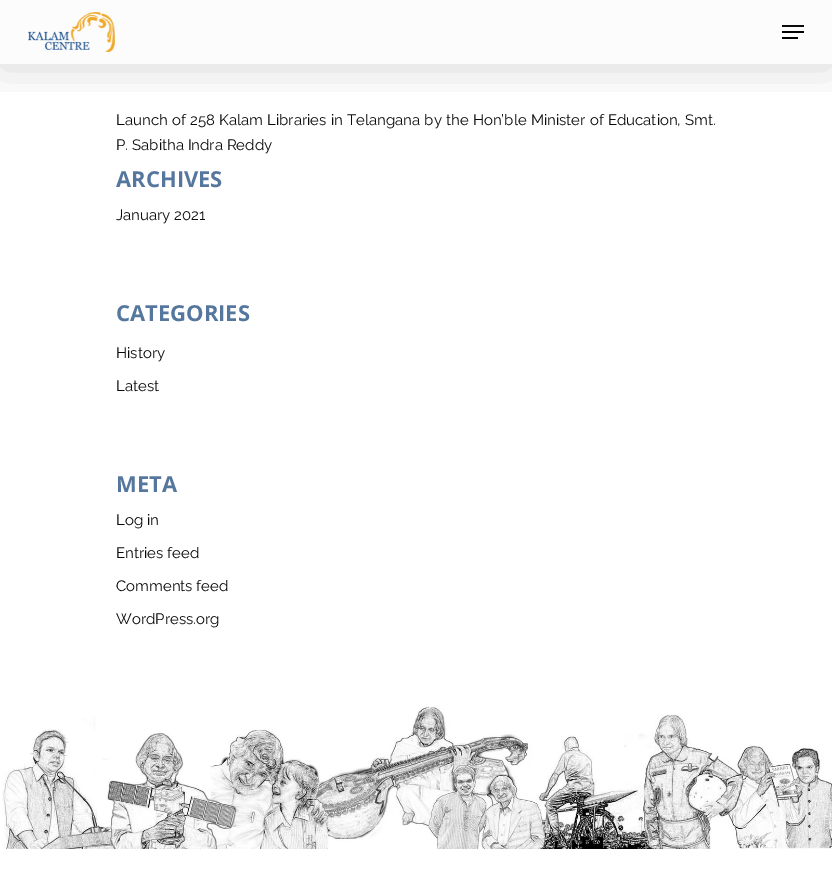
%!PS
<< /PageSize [832 895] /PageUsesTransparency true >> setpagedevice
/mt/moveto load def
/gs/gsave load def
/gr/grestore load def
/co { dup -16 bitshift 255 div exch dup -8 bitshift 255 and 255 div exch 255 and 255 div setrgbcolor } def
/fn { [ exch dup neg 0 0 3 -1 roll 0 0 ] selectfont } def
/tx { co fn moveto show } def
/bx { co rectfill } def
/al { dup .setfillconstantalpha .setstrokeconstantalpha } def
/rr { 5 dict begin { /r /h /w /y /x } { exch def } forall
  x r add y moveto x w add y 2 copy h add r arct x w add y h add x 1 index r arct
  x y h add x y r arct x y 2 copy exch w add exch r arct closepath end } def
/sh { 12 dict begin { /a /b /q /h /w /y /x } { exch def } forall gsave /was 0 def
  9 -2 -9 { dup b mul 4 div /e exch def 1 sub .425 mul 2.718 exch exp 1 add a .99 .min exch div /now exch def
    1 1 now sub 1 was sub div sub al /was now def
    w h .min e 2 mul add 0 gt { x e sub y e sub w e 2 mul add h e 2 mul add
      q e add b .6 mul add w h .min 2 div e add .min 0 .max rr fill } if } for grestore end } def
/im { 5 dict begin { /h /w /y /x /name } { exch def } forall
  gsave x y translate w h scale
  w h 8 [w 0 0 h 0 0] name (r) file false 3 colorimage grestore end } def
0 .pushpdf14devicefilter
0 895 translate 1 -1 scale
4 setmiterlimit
0 0 832 895 16#FFFFFF bx
0 0 832 64 16#FCFCFC bx
gs
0 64 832 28 rectclip
16#000000 co
0 3 832 64 0 22.5 .15 sh
gr
(media/1.raw) 28 12 87 40 im
782 25 22 2 16#0A0A0A bx
782 37 16 2 16#000000 bx
782 31 22 2 16#000000 bx
(media/2.raw) 2 706 830 143 im
/Raleway-Regular 15 fn
16#0A0A0A co
116 125 mt .4 0 32 (Launch of 258 Kalam Libraries in Telangana by the Hon’ble Minister of Education, Smt.) widthshow
(P. Sabitha Indra Reddy) 116 150 /Raleway-Regular 15 16#0A0A0A tx
(ARCHIVES) 116 187 /OpenSans-Bold 22 16#56779D tx
(January 2021) 116 220 /Raleway-Regular 15 16#0A0A0A tx
(CATEGORIES) 116 321 /OpenSans-Bold 22 16#56779D tx
(History) 116 358 /Raleway-Regular 15 16#0A0A0A tx
(Latest) 116 391 /Raleway-Regular 15 16#0A0A0A tx
(META) 116 492 /OpenSans-Bold 22 16#56779D tx
(Log in) 116 525 /Raleway-Regular 15 16#0A0A0A tx
(Entries feed) 116 558 /Raleway-Regular 15 16#0A0A0A tx
(Comments feed) 116 591 /Raleway-Regular 15 16#0A0A0A tx
(WordPress.org) 116 624 /Raleway-Regular 15 16#0A0A0A tx
.poppdf14devicefilter showpage
